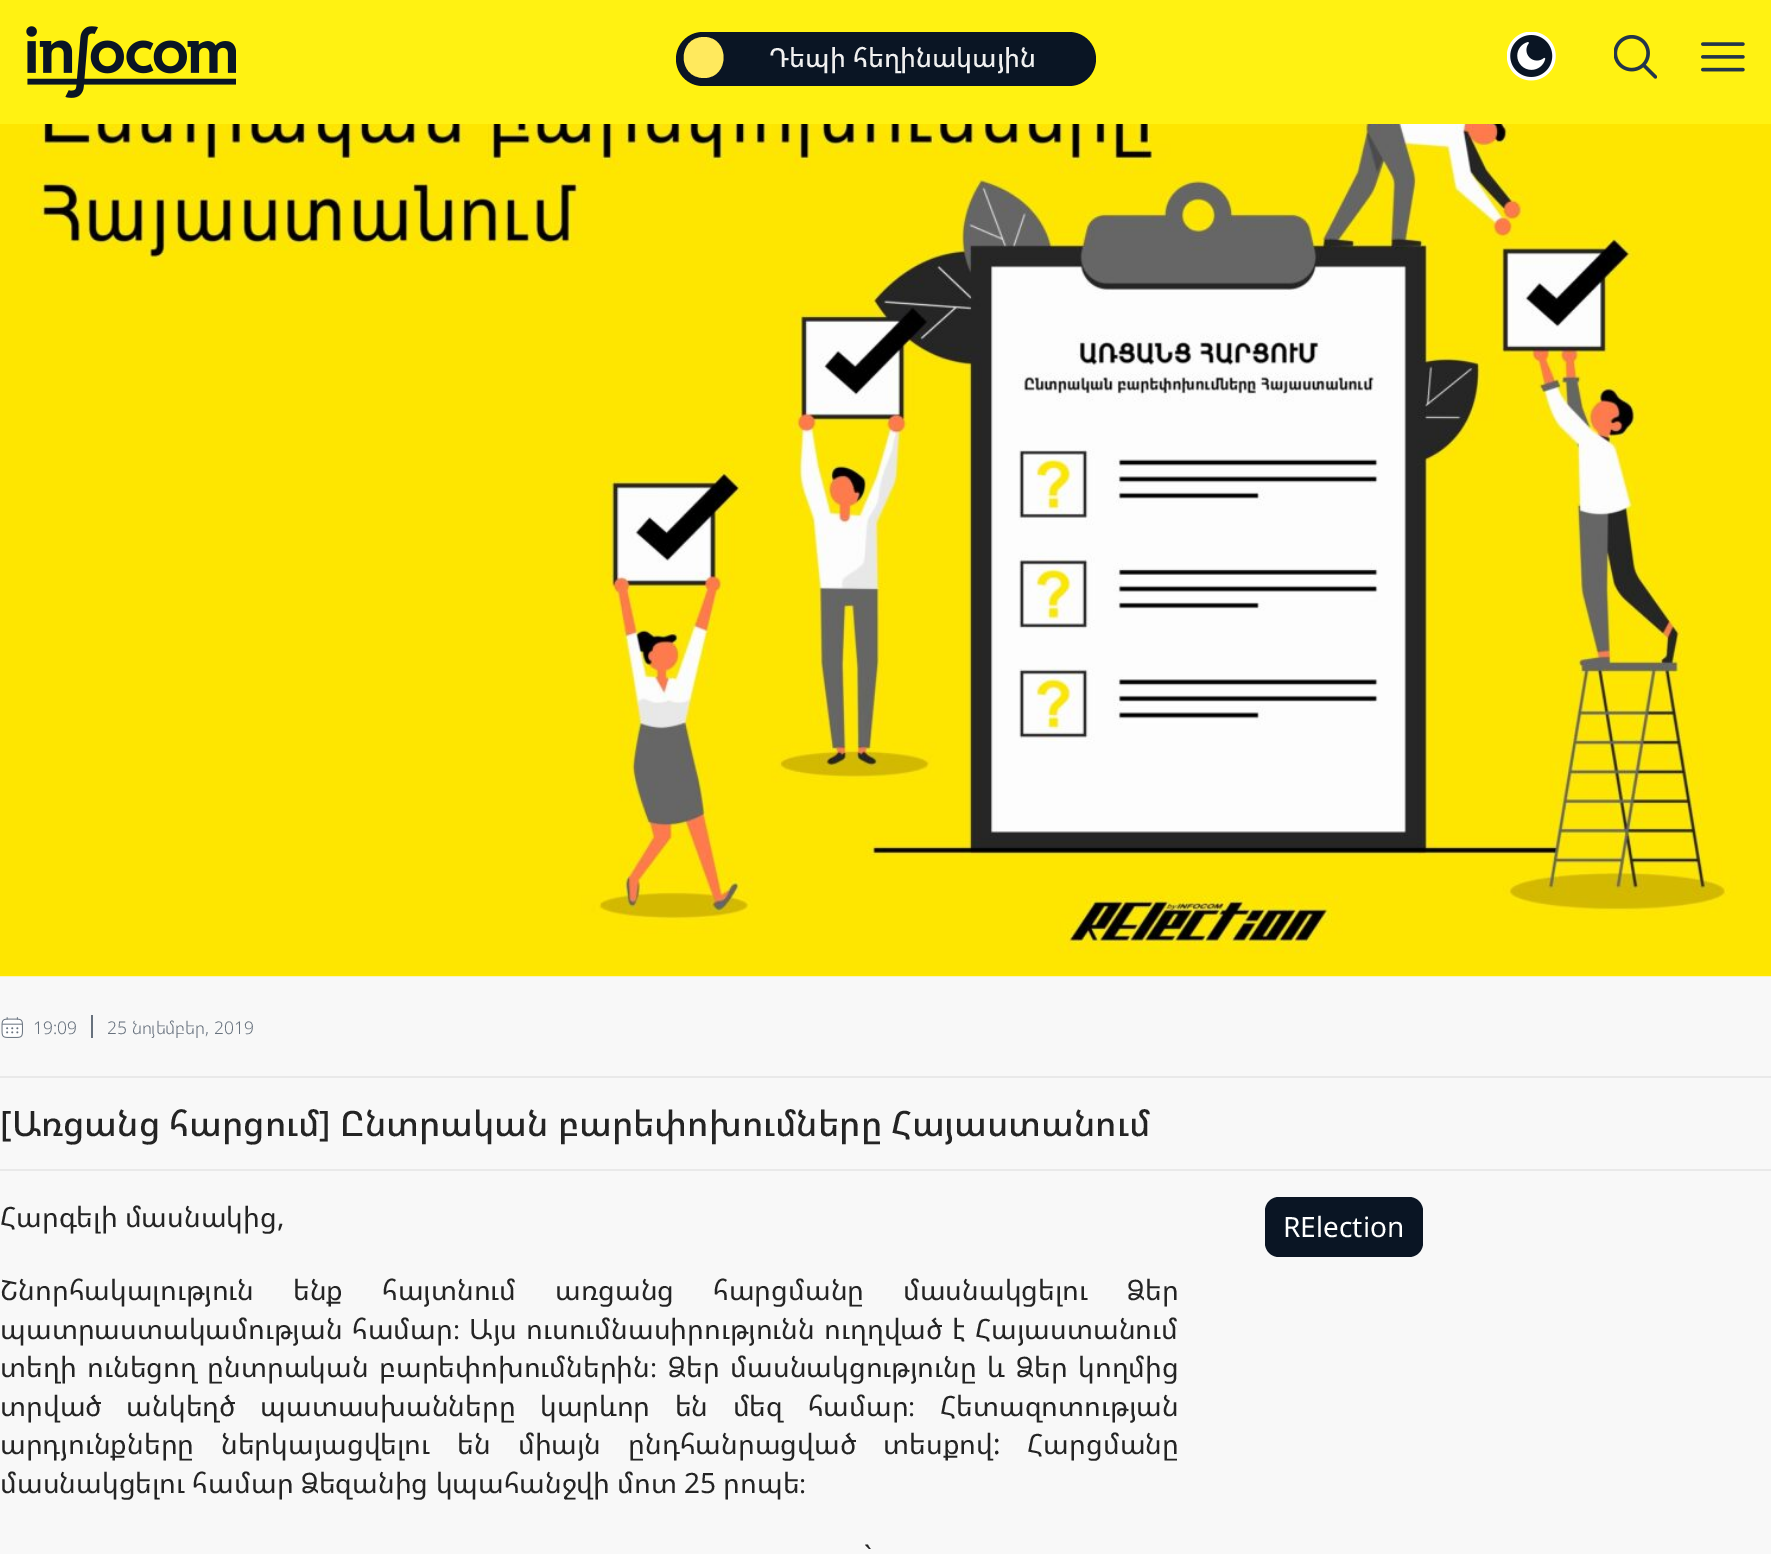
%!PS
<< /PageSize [1771 1554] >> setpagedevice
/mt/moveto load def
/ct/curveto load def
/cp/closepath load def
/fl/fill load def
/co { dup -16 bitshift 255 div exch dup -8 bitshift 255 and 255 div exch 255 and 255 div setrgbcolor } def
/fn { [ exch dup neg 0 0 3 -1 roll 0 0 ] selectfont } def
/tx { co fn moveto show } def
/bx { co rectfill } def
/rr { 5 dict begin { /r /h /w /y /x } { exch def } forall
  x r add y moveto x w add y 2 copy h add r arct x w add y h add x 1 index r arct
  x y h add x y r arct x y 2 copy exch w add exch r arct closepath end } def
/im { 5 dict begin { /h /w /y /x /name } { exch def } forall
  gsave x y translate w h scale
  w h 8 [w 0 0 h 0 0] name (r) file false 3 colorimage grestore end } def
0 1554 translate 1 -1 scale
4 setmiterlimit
0 0 1771 1554 16#F8F8F8 bx
0 0 1771 124 16#FFF212 bx
(media/1.raw) 26 26 210 72 im
16#0A1524 co
676 32 420 54 27 rr fl
16#FFE95D co
704 37 mt 677 37 677 78 704 78 ct 730 78 730 37 704 37 ct cp fl
(media/2.raw) 1507 32 49 49 im
(media/3.raw) 1614 35 43 44 im
(media/4.raw) 1701 42 44 30 im
(media/5.raw) 0 124 1771 853 im
(media/6.raw) 1 1017 22 21 im
91 1015 2 23 16#67717D bx
0 1076 1771 2 16#E9E9E9 bx
0 1169 1771 2 16#E9E9E9 bx
16#0A1524 co
1265 1197 158 60 14 rr fl
(Դեպի հեղինակային) 769 67 /NotoSansArmenian-Medium 26.25 16#F0F0F0 tx
(19:09) 33 1034 /NotoSansArmenian-Light 17.5 16#67717D tx
(25 նոյեմբեր, 2019) 107 1034 /NotoSansArmenian-Light 17.5 16#67717D tx
([Առցանց հարցում] Ընտրական բարեփոխումները Հայաստանում) 0 1136 /NotoSansArmenian-Medium 35 16#242424 tx
(Հարգելի մասնակից,) 0 1227 /NotoSansArmenian-Regular 28 16#242424 tx
0 1300 mt 31.5 0 32 (Շնորհակալություն ենք հայտնում առցանց հարցմանը մասնակցելու Ձեր) widthshow
0 1339 mt 2.25 0 32 (պատրաստակամության համար։ Այս ուսումնասիրությունն ուղղված է Հայաստանում) widthshow
0 1377 mt 3.5 0 32 (տեղի ունեցող ընտրական բարեփոխումներին։ Ձեր մասնակցությունը և Ձեր կողմից) widthshow
0 1416 mt 17.25 0 32 (տրված անկեղծ պատասխանները կարևոր են մեզ համար։ Հետազոտության) widthshow
0 1454 mt 19.75 0 32 (արդյունքները ներկայացվելու են միայն ընդհանրացված տեսքով: Հարցմանը) widthshow
(մասնակցելու համար Ձեզանից կպահանջվի մոտ 25 րոպե։) 0 1493 /NotoSansArmenian-Regular 28 16#242424 tx
864 1566 mt 13 0 32 (`) widthshow
(RElection) 1283 1237 /NotoSansArmenian-Regular 28 16#FFFFFF tx
showpage
